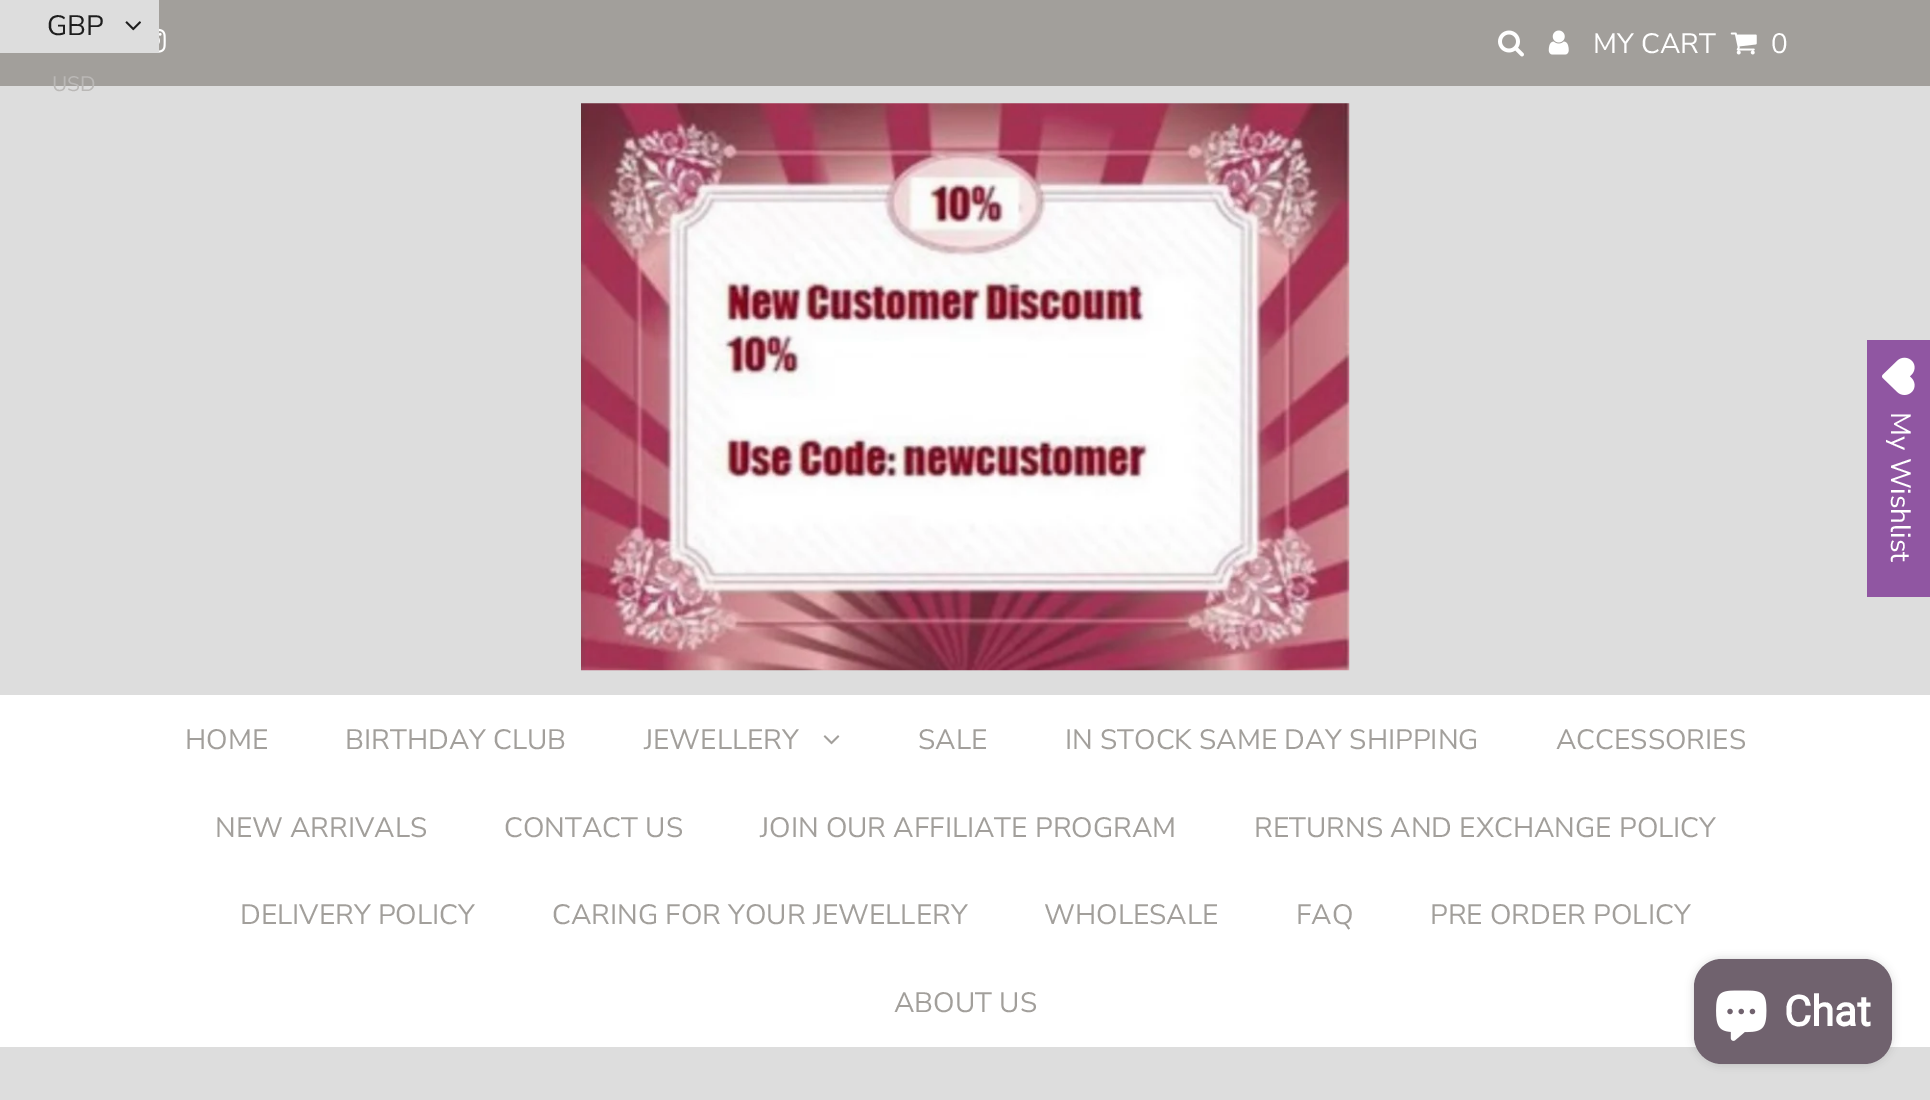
%!PS
<< /PageSize [1930 1100] /PageUsesTransparency true >> setpagedevice
/mt/moveto load def
/fl/fill load def
/gs/gsave load def
/gr/grestore load def
/co { dup -16 bitshift 255 div exch dup -8 bitshift 255 and 255 div exch 255 and 255 div setrgbcolor } def
/fn { [ exch dup neg 0 0 3 -1 roll 0 0 ] selectfont } def
/tx { co fn moveto show } def
/bx { co rectfill } def
/al { dup .setfillconstantalpha .setstrokeconstantalpha } def
/rr { 5 dict begin { /r /h /w /y /x } { exch def } forall
  x r add y moveto x w add y 2 copy h add r arct x w add y h add x 1 index r arct
  x y h add x y r arct x y 2 copy exch w add exch r arct closepath end } def
/sh { 12 dict begin { /a /b /q /h /w /y /x } { exch def } forall gsave /was 0 def
  9 -2 -9 { dup b mul 4 div /e exch def 1 sub .425 mul 2.718 exch exp 1 add a .99 .min exch div /now exch def
    1 1 now sub 1 was sub div sub al /was now def
    w h .min e 2 mul add 0 gt { x e sub y e sub w e 2 mul add h e 2 mul add
      q e add b .6 mul add w h .min 2 div e add .min 0 .max rr fill } if } for grestore end } def
/im { 5 dict begin { /h /w /y /x /name } { exch def } forall
  gsave x y translate w h scale
  w h 8 [w 0 0 h 0 0] name (r) file false 3 colorimage grestore end } def
0 .pushpdf14devicefilter
0 1100 translate 1 -1 scale
4 setmiterlimit
0 0 1930 1100 16#DDDDDD bx
0 0 1930 86 16#A29F9B bx
0 0 159 53 16#DDDDDD bx
(media/1.raw) 125 21 16 10 im
(media/2.raw) 159 28 7 25 im
(media/3.raw) 1498 30 26 27 im
(media/4.raw) 1548 30 21 25 im
(media/5.raw) 1730 32 27 23 im
(media/6.raw) 581 103 769 568 im
0 695 1930 352 16#FFFFFF bx
(media/7.raw) 823 735 17 10 im
1867 340 63 257 16#9056A2 bx
(media/8.raw) 1882 357 33 38 im
16#000000 co
1694 959 198 105 28 4.5 .15 sh
16#70626E co
1694 959 198 105 28 rr fl
(media/9.raw) 1716 990 51 51 im
(GBP) 47 35 /NunitoSans-Regular 28 16#1E1E1E tx
(USD) 52 91 /NunitoSans-Regular 21 16#BAB8B6 tx
(MY CART) 1593 53 /NunitoSans-Regular 28 16#FFFFFF tx
(0) 1771 53 /NunitoSans-Regular 28 16#FFFFFF tx
(HOME) 185 749 /NunitoSans-Regular 28 16#A29F9B tx
(BIRTHDAY CLUB) 345 749 /NunitoSans-Regular 28 16#A29F9B tx
(JEWELLERY) 644 749 /NunitoSans-Regular 28 16#A29F9B tx
(SALE) 918 749 /NunitoSans-Regular 28 16#A29F9B tx
(IN STOCK SAME DAY SHIPPING) 1065 749 /NunitoSans-Regular 28 16#A29F9B tx
(ACCESSORIES) 1556 749 /NunitoSans-Regular 28 16#A29F9B tx
(NEW ARRIVALS) 215 837 /NunitoSans-Regular 28 16#A29F9B tx
(CONTACT US) 504 837 /NunitoSans-Regular 28 16#A29F9B tx
(JOIN OUR AFFILIATE PROGRAM) 760 837 /NunitoSans-Regular 28 16#A29F9B tx
(RETURNS AND EXCHANGE POLICY) 1254 837 /NunitoSans-Regular 28 16#A29F9B tx
(DELIVERY POLICY) 240 924 /NunitoSans-Regular 28 16#A29F9B tx
(CARING FOR YOUR JEWELLERY) 552 924 /NunitoSans-Regular 28 16#A29F9B tx
(WHOLESALE) 1044 924 /NunitoSans-Regular 28 16#A29F9B tx
(FAQ) 1296 924 /NunitoSans-Regular 28 16#A29F9B tx
(PRE ORDER POLICY) 1430 924 /NunitoSans-Regular 28 16#A29F9B tx
(ABOUT US) 894 1012 /NunitoSans-Regular 28 16#A29F9B tx
16#FFFFFF co
gs 1891 412 translate 90 rotate 0 0 mt (My Wishlist) show gr
(Chat) 1784 1026 /Roboto-Bold 42 16#FFFFFF tx
.poppdf14devicefilter showpage
